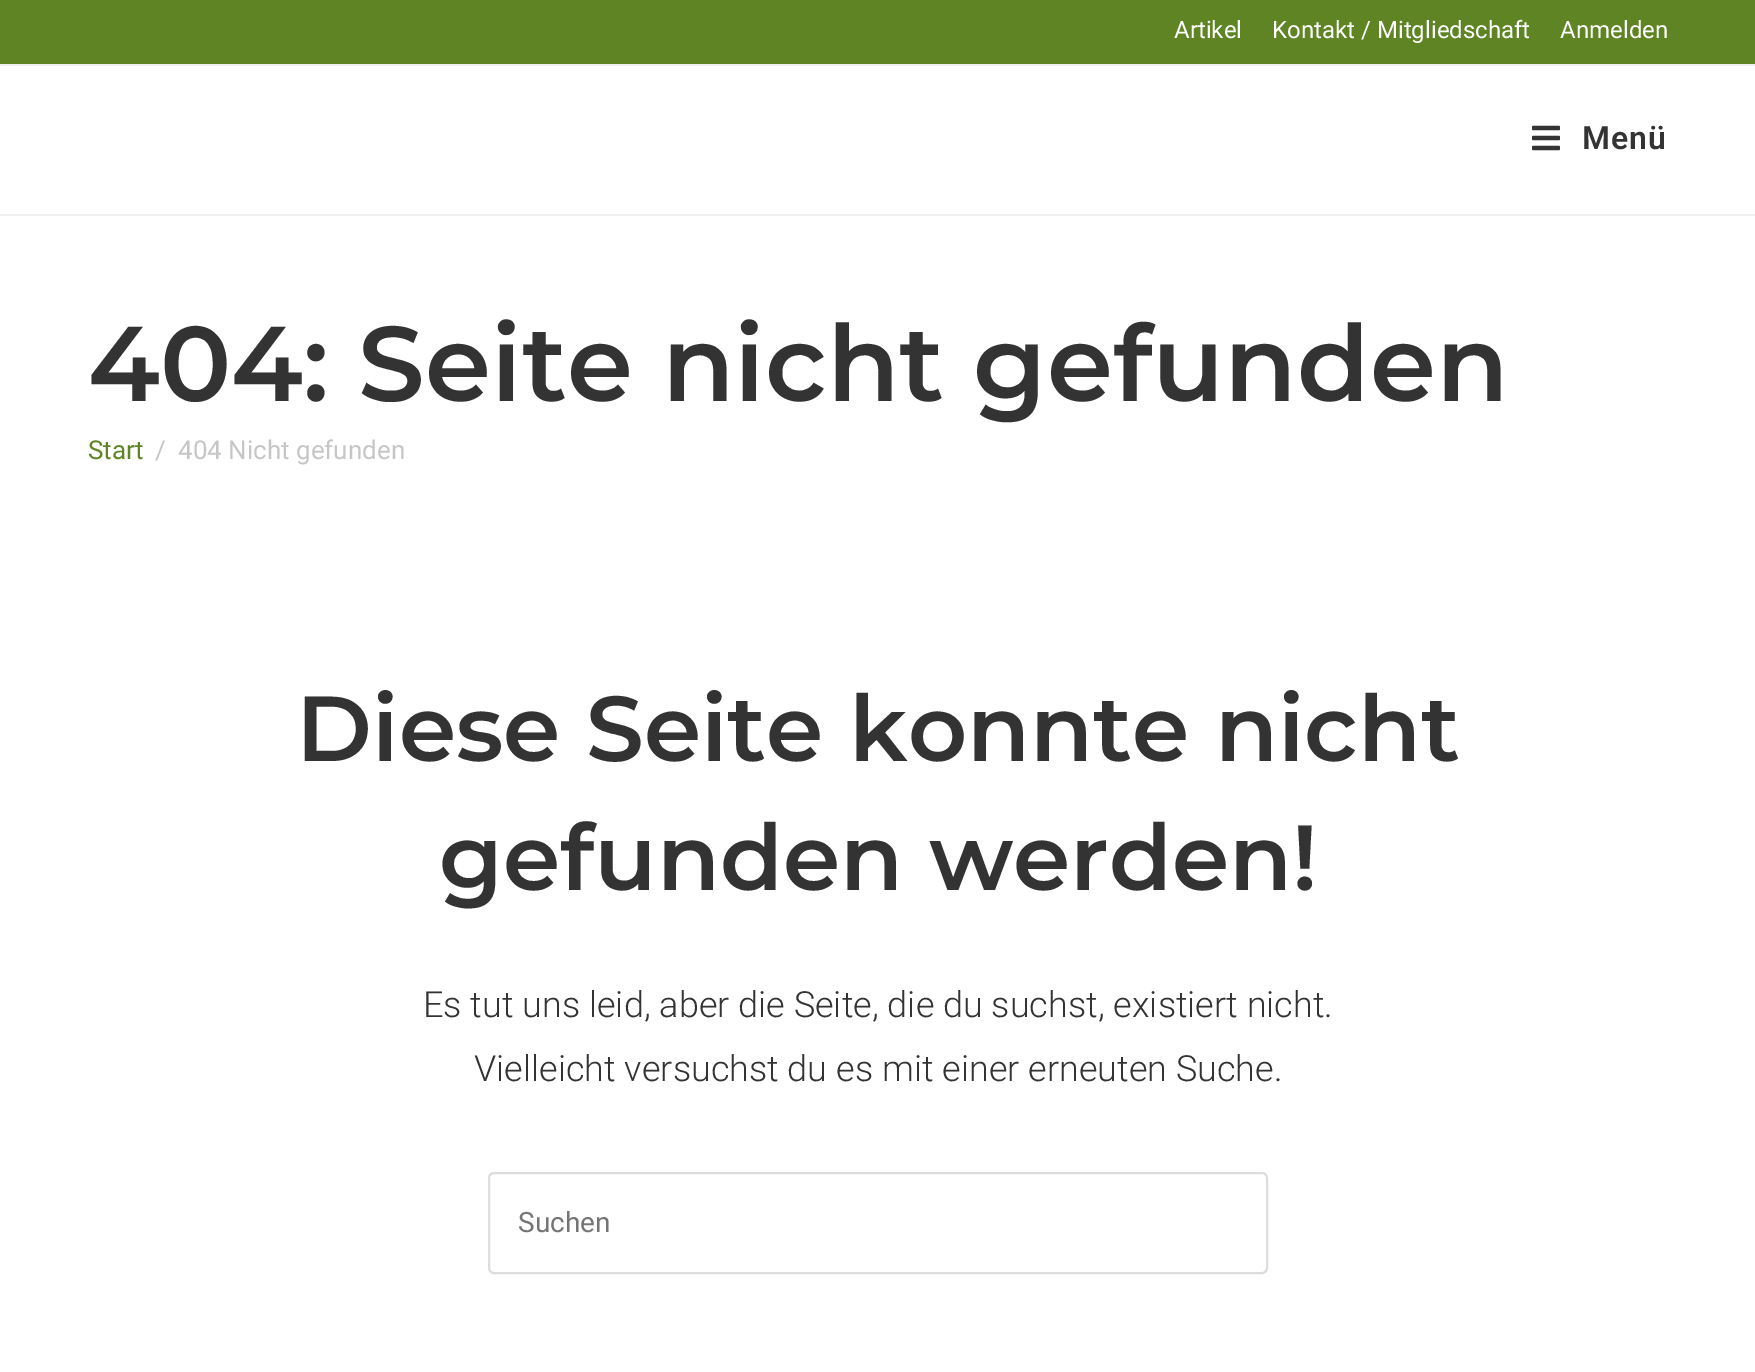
%!PS
<< /PageSize [1755 1372] >> setpagedevice
/mt/moveto load def
/st/stroke load def
/lw/setlinewidth load def
/co { dup -16 bitshift 255 div exch dup -8 bitshift 255 and 255 div exch 255 and 255 div setrgbcolor } def
/fn { [ exch dup neg 0 0 3 -1 roll 0 0 ] selectfont } def
/tx { co fn moveto show } def
/bx { co rectfill } def
/rr { 5 dict begin { /r /h /w /y /x } { exch def } forall
  x r add y moveto x w add y 2 copy h add r arct x w add y h add x 1 index r arct
  x y h add x y r arct x y 2 copy exch w add exch r arct closepath end } def
/im { 5 dict begin { /h /w /y /x /name } { exch def } forall
  gsave x y translate w h scale
  w h 8 [w 0 0 h 0 0] name (r) file false 3 colorimage grestore end } def
0 1372 translate 1 -1 scale
4 setmiterlimit
0 0 1755 1372 16#FFFFFF bx
0 0 1755 64 16#5E8423 bx
0 64 1755 2 16#F1F1F1 bx
0 214 1755 2 16#F1F1F1 bx
(media/1.raw) 1532 125 28 26 im
16#DDDDDD co
2 lw
489 1173 778 100 5 rr st
(Artikel) 1174 38 /Roboto-Regular 24 16#FFFFFF tx
(Kontakt / Mitgliedschaft) 1272 38 /Roboto-Regular 24 16#FFFFFF tx
(Anmelden) 1560 38 /Roboto-Regular 24 16#FFFFFF tx
/Roboto-SemiBold 32 fn
16#333333 co
1582 149 mt 1 0 (Menü) ashow
(404: Seite nicht gefunden) 88 401 /Montserrat-SemiBold 106 16#333333 tx
(Start) 88 459 /Roboto-Regular 26 16#5E8423 tx
(/) 155 459 /Roboto-Regular 26 16#C6C6C6 tx
(404 Nicht gefunden) 178 459 /Roboto-Regular 26 16#C6C6C6 tx
(Diese Seite konnte nicht) 296 761 /Montserrat-SemiBold 92 16#333333 tx
(gefunden werden!) 439 890 /Montserrat-SemiBold 92 16#333333 tx
(Es tut uns leid, aber die Seite, die du suchst, existiert nicht.) 423 1017 /Roboto-Light 36 16#333333 tx
(Vielleicht versuchst du es mit einer erneuten Suche.) 474 1081 /Roboto-Light 36 16#333333 tx
(Suchen) 518 1232 /Roboto-Regular 28 16#757575 tx
showpage
